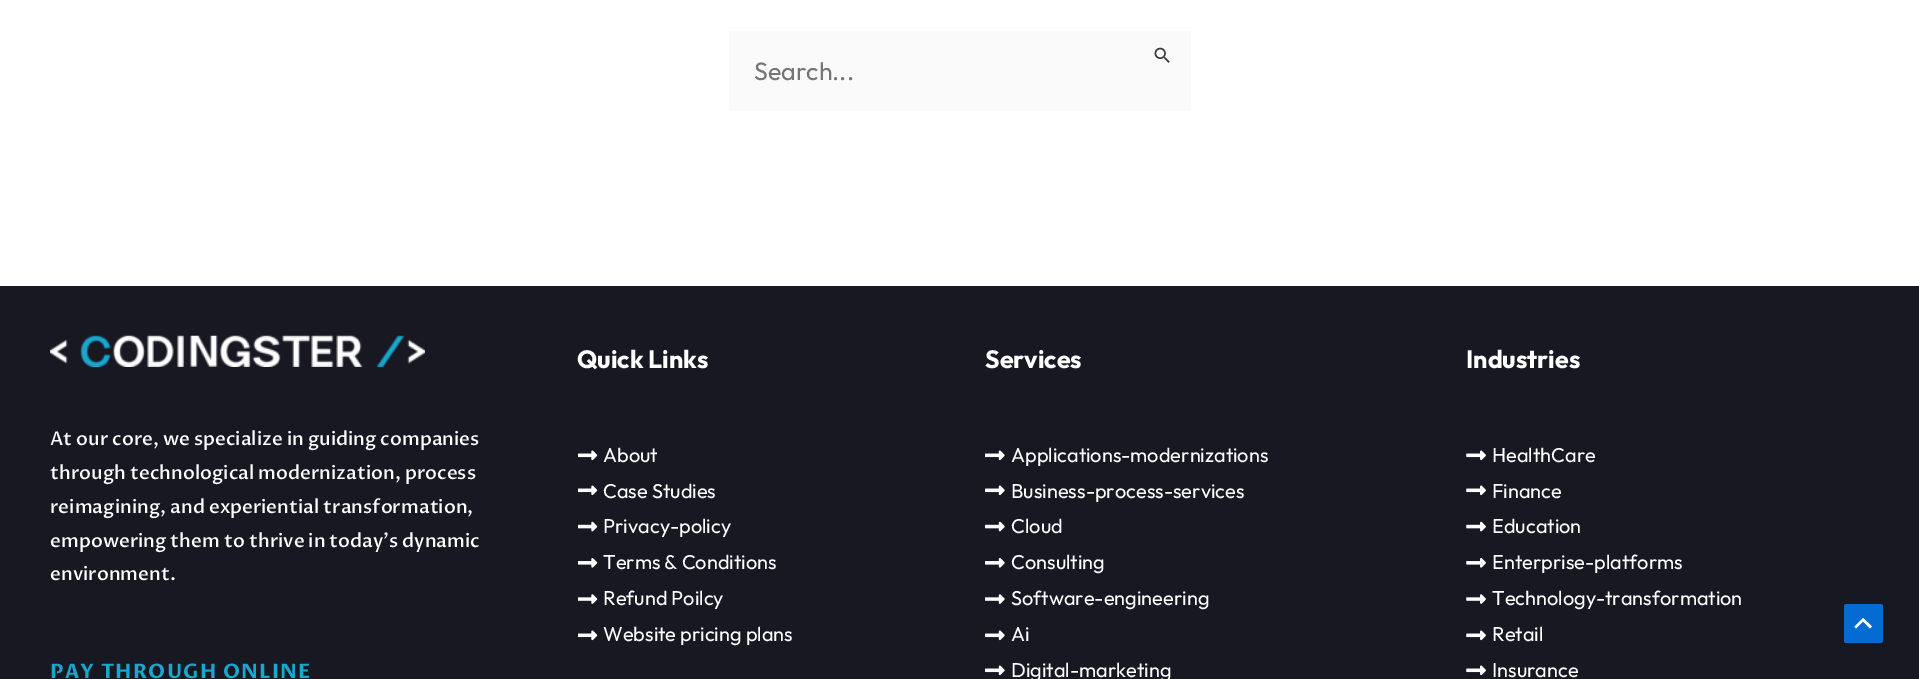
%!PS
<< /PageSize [1919 679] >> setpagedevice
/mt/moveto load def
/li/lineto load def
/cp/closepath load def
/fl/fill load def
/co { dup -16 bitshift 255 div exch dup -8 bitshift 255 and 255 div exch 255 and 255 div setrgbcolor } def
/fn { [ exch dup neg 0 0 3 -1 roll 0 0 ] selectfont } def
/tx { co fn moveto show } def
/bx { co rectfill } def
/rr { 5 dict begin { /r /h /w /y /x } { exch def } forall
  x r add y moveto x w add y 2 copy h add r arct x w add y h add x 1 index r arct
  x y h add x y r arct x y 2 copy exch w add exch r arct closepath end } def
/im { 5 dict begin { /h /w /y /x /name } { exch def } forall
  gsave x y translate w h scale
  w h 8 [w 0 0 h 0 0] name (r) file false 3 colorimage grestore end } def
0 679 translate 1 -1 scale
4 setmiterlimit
0 0 1919 679 16#FFFFFF bx
729 31 462 80 16#FAFAFA bx
(media/1.raw) 1154 47 16 16 im
0 286 1919 393 16#181823 bx
(media/2.raw) 50 335 375 32 im
(media/3.raw) 578 450 20 11 im
(media/3.raw) 578 485 20 11 im
(media/4.raw) 578 521 20 11 im
(media/5.raw) 578 558 20 10 im
(media/6.raw) 578 594 20 10 im
(media/3.raw) 578 630 20 11 im
(media/7.raw) 985 450 20 11 im
(media/7.raw) 985 485 20 11 im
(media/8.raw) 985 521 20 11 im
(media/9.raw) 985 558 20 10 im
(media/10.raw) 985 594 20 10 im
(media/7.raw) 985 630 20 11 im
(media/7.raw) 985 665 20 11 im
(media/11.raw) 1466 450 20 11 im
(media/11.raw) 1466 485 20 11 im
(media/12.raw) 1466 521 20 11 im
(media/13.raw) 1466 558 20 10 im
(media/14.raw) 1466 594 20 10 im
(media/11.raw) 1466 630 20 11 im
(media/11.raw) 1466 665 20 11 im
16#046BD2 co
1844 604 39 39 2.5 rr fl
16#FFFFFF co
1872 626.5 mt 1863 618 li 1854.5 626.5 li 1856 628.5 li 1863 621.5 li 1870 628.5 li cp fl
(Search...) 754 80 /Outfit-Regular 25 16#757575 tx
(At our core, we specialize in guiding companies) 50 445 /ProzaLibre-Medium 18.75 16#FFFFFF tx
(through technological modernization, process) 50 479 /ProzaLibre-Medium 18.75 16#FFFFFF tx
(reimagining, and experiential transformation,) 50 513 /ProzaLibre-Medium 18.75 16#FFFFFF tx
(empowering them to thrive in today’s dynamic) 50 547 /ProzaLibre-Medium 18.75 16#FFFFFF tx
(environment.) 50 580 /ProzaLibre-Medium 18.75 16#FFFFFF tx
/ProzaLibre-Bold 20 fn
16#19A7CE co
50 678 mt 1.25 0 (PAY THROUGH ONLINE) ashow
(Quick Links) 577 368 /Outfit-Bold 25 16#FFFFFF tx
(About) 603 462 /Outfit-Regular 20 16#FFFFFF tx
(Case Studies) 603 498 /Outfit-Regular 20 16#FFFFFF tx
(Privacy-policy) 603 533 /Outfit-Regular 20 16#FFFFFF tx
(Terms & Conditions) 603 569 /Outfit-Regular 20 16#FFFFFF tx
(Refund Poilcy) 603 605 /Outfit-Regular 20 16#FFFFFF tx
(Website pricing plans) 603 641 /Outfit-Regular 20 16#FFFFFF tx
(Services) 985 368 /Outfit-Bold 25 16#FFFFFF tx
(Applications-modernizations) 1011 462 /Outfit-Regular 20 16#FFFFFF tx
(Business-process-services) 1011 498 /Outfit-Regular 20 16#FFFFFF tx
(Cloud) 1011 533 /Outfit-Regular 20 16#FFFFFF tx
(Consulting) 1011 569 /Outfit-Regular 20 16#FFFFFF tx
(Software-engineering) 1011 605 /Outfit-Regular 20 16#FFFFFF tx
(Ai) 1011 641 /Outfit-Regular 20 16#FFFFFF tx
(Digital-marketing) 1011 677 /Outfit-Regular 20 16#FFFFFF tx
(Industries) 1466 368 /Outfit-Bold 25 16#FFFFFF tx
(HealthCare) 1492 462 /Outfit-Regular 20 16#FFFFFF tx
(Finance) 1492 498 /Outfit-Regular 20 16#FFFFFF tx
(Education) 1492 533 /Outfit-Regular 20 16#FFFFFF tx
(Enterprise-platforms) 1492 569 /Outfit-Regular 20 16#FFFFFF tx
(Technology-transformation) 1492 605 /Outfit-Regular 20 16#FFFFFF tx
(Retail) 1492 641 /Outfit-Regular 20 16#FFFFFF tx
(Insurance) 1492 677 /Outfit-Regular 20 16#FFFFFF tx
showpage
